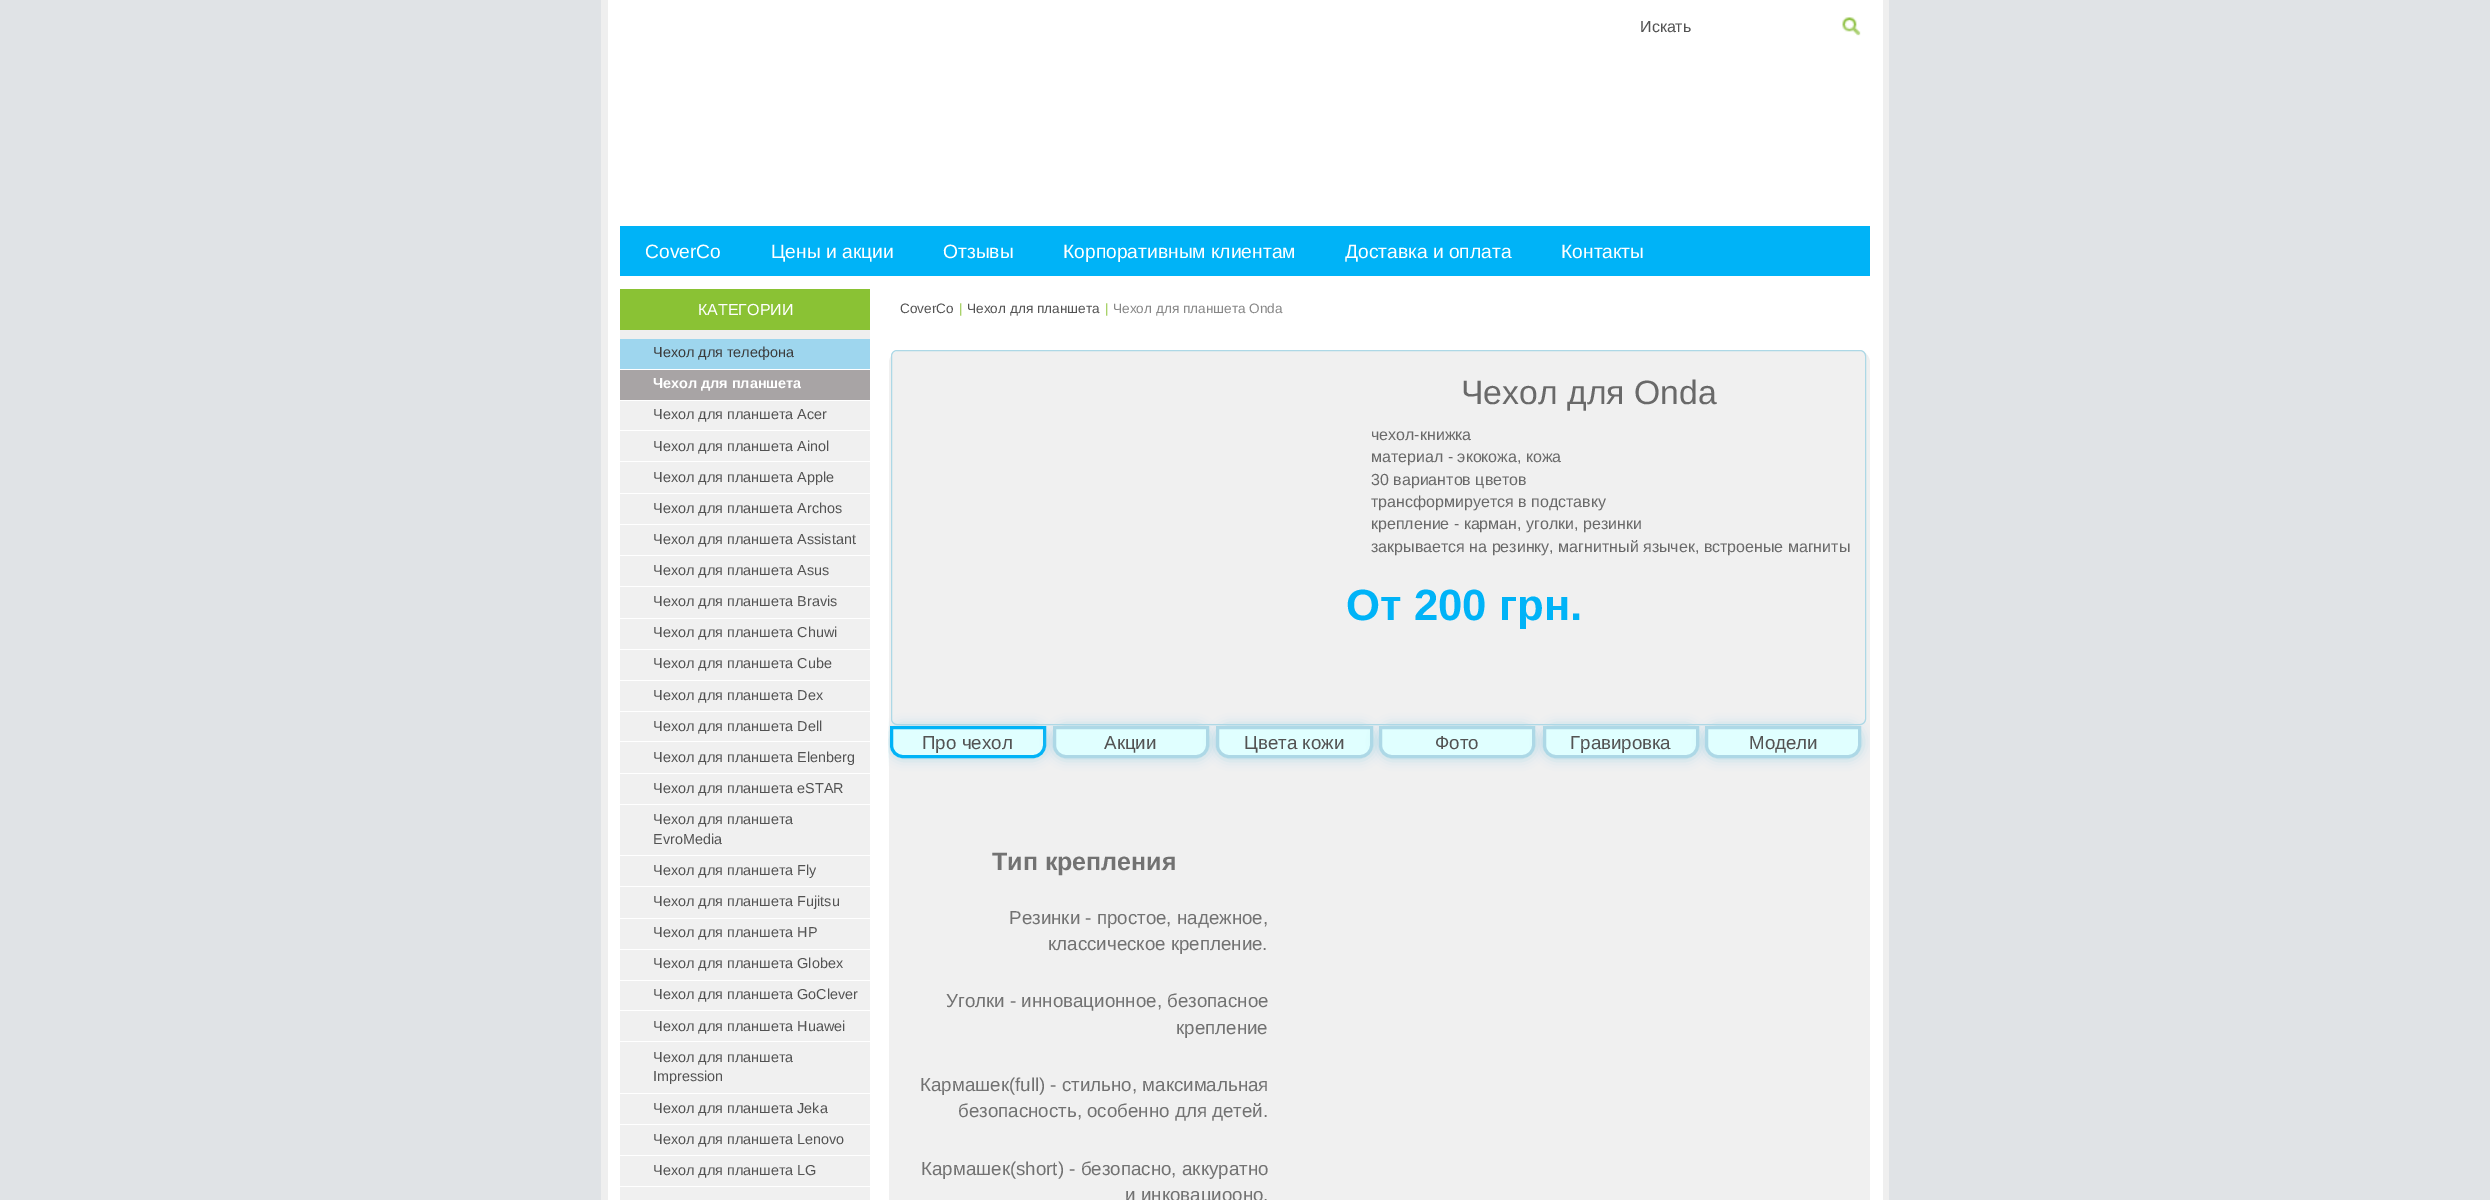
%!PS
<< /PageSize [2490 1200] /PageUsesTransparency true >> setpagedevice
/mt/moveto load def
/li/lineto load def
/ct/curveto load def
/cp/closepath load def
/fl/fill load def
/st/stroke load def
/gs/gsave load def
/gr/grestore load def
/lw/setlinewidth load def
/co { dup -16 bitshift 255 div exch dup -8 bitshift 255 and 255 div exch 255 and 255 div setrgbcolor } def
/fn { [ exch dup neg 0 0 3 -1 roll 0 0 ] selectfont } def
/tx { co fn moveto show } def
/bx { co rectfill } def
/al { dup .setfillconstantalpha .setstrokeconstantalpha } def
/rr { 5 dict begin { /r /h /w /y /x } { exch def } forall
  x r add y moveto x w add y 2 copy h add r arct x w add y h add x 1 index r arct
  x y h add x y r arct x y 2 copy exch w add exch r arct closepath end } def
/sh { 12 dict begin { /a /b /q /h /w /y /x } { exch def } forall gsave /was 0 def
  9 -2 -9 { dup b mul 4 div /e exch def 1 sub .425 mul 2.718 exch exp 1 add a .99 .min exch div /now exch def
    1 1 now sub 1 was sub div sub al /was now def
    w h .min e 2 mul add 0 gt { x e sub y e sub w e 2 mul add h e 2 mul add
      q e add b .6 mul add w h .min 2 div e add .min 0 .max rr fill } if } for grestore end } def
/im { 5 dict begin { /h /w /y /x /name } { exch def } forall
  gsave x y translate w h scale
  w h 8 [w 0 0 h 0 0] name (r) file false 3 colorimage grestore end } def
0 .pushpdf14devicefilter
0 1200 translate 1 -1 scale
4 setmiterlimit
0 0 2490 1200 16#E0E3E6 bx
608 0 1275 1200 16#FFFFFF bx
1883 0 6 1200 16#EFEFEF bx
601 0 7 1200 16#EFEFEF bx
(media/1.raw) 1842 17 19 19 im
620 226 1250 50 16#00B3F7 bx
620 330 250 9 16#EFEFEF bx
620 289 250 41 16#8AC234 bx
620 339 250 30 16#9ED6EE bx
620 370 250 30 16#A8A4A5 bx
620 401 250 799 16#F0F0F0 bx
620 430 250 1 16#FFFFFF bx
620 461 250 1 16#FFFFFF bx
620 493 250 1 16#FFFFFF bx
620 524 250 1 16#FFFFFF bx
620 555 250 1 16#FFFFFF bx
620 586 250 1 16#FFFFFF bx
620 618 250 1 16#FFFFFF bx
620 649 250 1 16#FFFFFF bx
620 680 250 1 16#FFFFFF bx
620 711 250 1 16#FFFFFF bx
620 741 250 1 16#FFFFFF bx
620 773 250 1 16#FFFFFF bx
620 804 250 1 16#FFFFFF bx
620 855 250 1 16#FFFFFF bx
620 886 250 1 16#FFFFFF bx
620 918 250 1 16#FFFFFF bx
620 949 250 1 16#FFFFFF bx
620 980 250 1 16#FFFFFF bx
620 1010 250 1 16#FFFFFF bx
620 1041 250 1 16#FFFFFF bx
620 1093 250 1 16#FFFFFF bx
620 1124 250 1 16#FFFFFF bx
620 1155 250 1 16#FFFFFF bx
620 1186 250 1 16#FFFFFF bx
16#F0F0F0 co
889 350 981 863 13 rr fl
16#ADD8E6 co
891.5 350.5 974 374 5.5 rr st
gs
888 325 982 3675 rectclip
890 726 156 32 13 6 1 sh
gr
16#E0FFFF co
891.5 727.5 mt 1044.5 727.5 li 1044.5 745 li 1044.5 751.5 1039.5 756.5 1033 756.5 ct 903 756.5 li 896.5 756.5 891.5 751.5 891.5 745 ct cp gs fl gr
16#00B3F7 co
3 lw
st
16#ADD8E6 co
1053 726 156 32 13 6 1 sh
16#E0FFFF co
1054.5 727.5 mt 1207.5 727.5 li 1207.5 745 li 1207.5 751.5 1202.5 756.5 1196 756.5 ct 1066 756.5 li 1059.5 756.5 1054.5 751.5 1054.5 745 ct cp gs fl gr
16#ADD8E6 co
st
1216 726 157 32 13 6 1 sh
16#E0FFFF co
1217.5 727.5 mt 1371.5 727.5 li 1371.5 745 li 1371.5 751.5 1366.5 756.5 1360 756.5 ct 1229 756.5 li 1222.5 756.5 1217.5 751.5 1217.5 745 ct cp gs fl gr
16#ADD8E6 co
st
1379 726 156 32 13 6 1 sh
16#E0FFFF co
1380.5 727.5 mt 1533.5 727.5 li 1533.5 745 li 1533.5 751.5 1528.5 756.5 1522 756.5 ct 1392 756.5 li 1385.5 756.5 1380.5 751.5 1380.5 745 ct cp gs fl gr
16#ADD8E6 co
st
1543 726 156 32 13 6 1 sh
16#E0FFFF co
1544.5 727.5 mt 1697.5 727.5 li 1697.5 745 li 1697.5 751.5 1692.5 756.5 1686 756.5 ct 1556 756.5 li 1549.5 756.5 1544.5 751.5 1544.5 745 ct cp gs fl gr
16#ADD8E6 co
st
gs
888 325 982 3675 rectclip
1705 726 156 32 13 6 1 sh
gr
16#E0FFFF co
1706.5 727.5 mt 1859.5 727.5 li 1859.5 745 li 1859.5 751.5 1854.5 756.5 1848 756.5 ct 1718 756.5 li 1711.5 756.5 1706.5 751.5 1706.5 745 ct cp gs fl gr
16#ADD8E6 co
st
(Искать) 1640 32 /LiberationSans-Regular 16 16#535353 tx
(CoverCo) 645 258 /LiberationSans-Regular 19.25 16#FFFFFF tx
(Цены и акции) 771 258 /LiberationSans-Regular 19.25 16#FFFFFF tx
(Отзывы) 943 258 /LiberationSans-Regular 19.25 16#FFFFFF tx
(Корпоративным клиентам) 1063 258 /LiberationSans-Regular 19.25 16#FFFFFF tx
(Доставка и оплата) 1345 258 /LiberationSans-Regular 19.25 16#FFFFFF tx
(Контакты) 1561 258 /LiberationSans-Regular 19.25 16#FFFFFF tx
(КАТЕГОРИИ) 698 315 /LiberationSans-Regular 16 16#FFFFFF tx
(Чехол для телефона) 653 357 /LiberationSans-Regular 14.4 16#3B3B3B tx
(Чехол для планшета) 653 388 /LiberationSans-Bold 14.4 16#FFFFFF tx
(Чехол для планшета Acer) 653 419 /LiberationSans-Regular 14.4 16#535353 tx
(Чехол для планшета Ainol) 653 451 /LiberationSans-Regular 14.4 16#535353 tx
(Чехол для планшета Apple) 653 482 /LiberationSans-Regular 14.4 16#535353 tx
(Чехол для планшета Archos) 653 513 /LiberationSans-Regular 14.4 16#535353 tx
(Чехол для планшета Assistant) 653 544 /LiberationSans-Regular 14.4 16#535353 tx
(Чехол для планшета Asus) 653 575 /LiberationSans-Regular 14.4 16#535353 tx
(Чехол для планшета Bravis) 653 606 /LiberationSans-Regular 14.4 16#535353 tx
(Чехол для планшета Chuwi) 653 637 /LiberationSans-Regular 14.4 16#535353 tx
(Чехол для планшета Cube) 653 668 /LiberationSans-Regular 14.4 16#535353 tx
(Чехол для планшета Dex) 653 700 /LiberationSans-Regular 14.4 16#535353 tx
(Чехол для планшета Dell) 653 731 /LiberationSans-Regular 14.4 16#535353 tx
(Чехол для планшета Elenberg) 653 762 /LiberationSans-Regular 14.4 16#535353 tx
(Чехол для планшета eSTAR) 653 793 /LiberationSans-Regular 14.4 16#535353 tx
(Чехол для планшета) 653 824 /LiberationSans-Regular 14.4 16#535353 tx
(EvroMedia) 653 844 /LiberationSans-Regular 14.4 16#535353 tx
(Чехол для планшета Fly) 653 875 /LiberationSans-Regular 14.4 16#535353 tx
(Чехол для планшета Fujitsu) 653 906 /LiberationSans-Regular 14.4 16#535353 tx
(Чехол для планшета HP) 653 937 /LiberationSans-Regular 14.4 16#535353 tx
(Чехол для планшета Globex) 653 968 /LiberationSans-Regular 14.4 16#535353 tx
(Чехол для планшета GoClever) 653 999 /LiberationSans-Regular 14.4 16#535353 tx
(Чехол для планшета Huawei) 653 1031 /LiberationSans-Regular 14.4 16#535353 tx
(Чехол для планшета) 653 1062 /LiberationSans-Regular 14.4 16#535353 tx
(Impression) 653 1081 /LiberationSans-Regular 14.4 16#535353 tx
(Чехол для планшета Jeka) 653 1113 /LiberationSans-Regular 14.4 16#535353 tx
(Чехол для планшета Lenovo) 653 1144 /LiberationSans-Regular 14.4 16#535353 tx
(Чехол для планшета LG) 653 1175 /LiberationSans-Regular 14.4 16#535353 tx
(CoverCo) 900 313 /LiberationSans-Regular 13.6 16#535353 tx
(|) 959 313 /LiberationSans-Regular 13.6 16#8AC234 tx
(Чехол для планшета) 967 313 /LiberationSans-Regular 13.6 16#535353 tx
(|) 1105 313 /LiberationSans-Regular 13.6 16#8AC234 tx
(Чехол для планшета Onda) 1113 313 /LiberationSans-Regular 13.6 16#878787 tx
(Чехол для Onda) 1461 404 /LiberationSans-Regular 33.75 16#696969 tx
(чехол-книжка) 1371 440 /LiberationSans-Regular 16 16#696969 tx
(материал - экокожа, кожа) 1371 462 /LiberationSans-Regular 16 16#696969 tx
(30 вариантов цветов) 1371 485 /LiberationSans-Regular 16 16#696969 tx
(трансформируется в подставку) 1371 507 /LiberationSans-Regular 16 16#696969 tx
(крепление - карман, уголки, резинки) 1371 529 /LiberationSans-Regular 16 16#696969 tx
(закрывается на резинку, магнитный язычек, встроеные магниты) 1371 552 /LiberationSans-Regular 16 16#696969 tx
(От 200 грн.) 1346 620 /LiberationSans-Bold 43.75 16#00B3F7 tx
(Про чехол) 922 749 /LiberationSans-Regular 18.75 16#535353 tx
(Акции) 1104 749 /LiberationSans-Regular 18.75 16#535353 tx
(Цвета кожи) 1244 749 /LiberationSans-Regular 18.75 16#535353 tx
(Фото) 1435 749 /LiberationSans-Regular 18.75 16#535353 tx
(Гравировка) 1570 749 /LiberationSans-Regular 18.75 16#535353 tx
(Модели) 1749 749 /LiberationSans-Regular 18.75 16#535353 tx
(Тип крепления) 992 870 /LiberationSans-Bold 25 16#727272 tx
(Резинки - простое, надежное,) 1009 924 /LiberationSans-Regular 18.75 16#727272 tx
(классическое крепление.) 1048 950 /LiberationSans-Regular 18.75 16#727272 tx
(Уголки - инновационное, безопасное) 946 1007 /LiberationSans-Regular 18.75 16#727272 tx
(крепление) 1176 1034 /LiberationSans-Regular 18.75 16#727272 tx
(Кармашек\(full\) - стильно, максимальная) 920 1091 /LiberationSans-Regular 18.75 16#727272 tx
(безопасность, особенно для детей.) 958 1117 /LiberationSans-Regular 18.75 16#727272 tx
(Кармашек\(short\) - безопасно, аккуратно) 921 1175 /LiberationSans-Regular 18.75 16#727272 tx
(и инковациооно.) 1125 1201 /LiberationSans-Regular 18.75 16#727272 tx
.poppdf14devicefilter showpage
